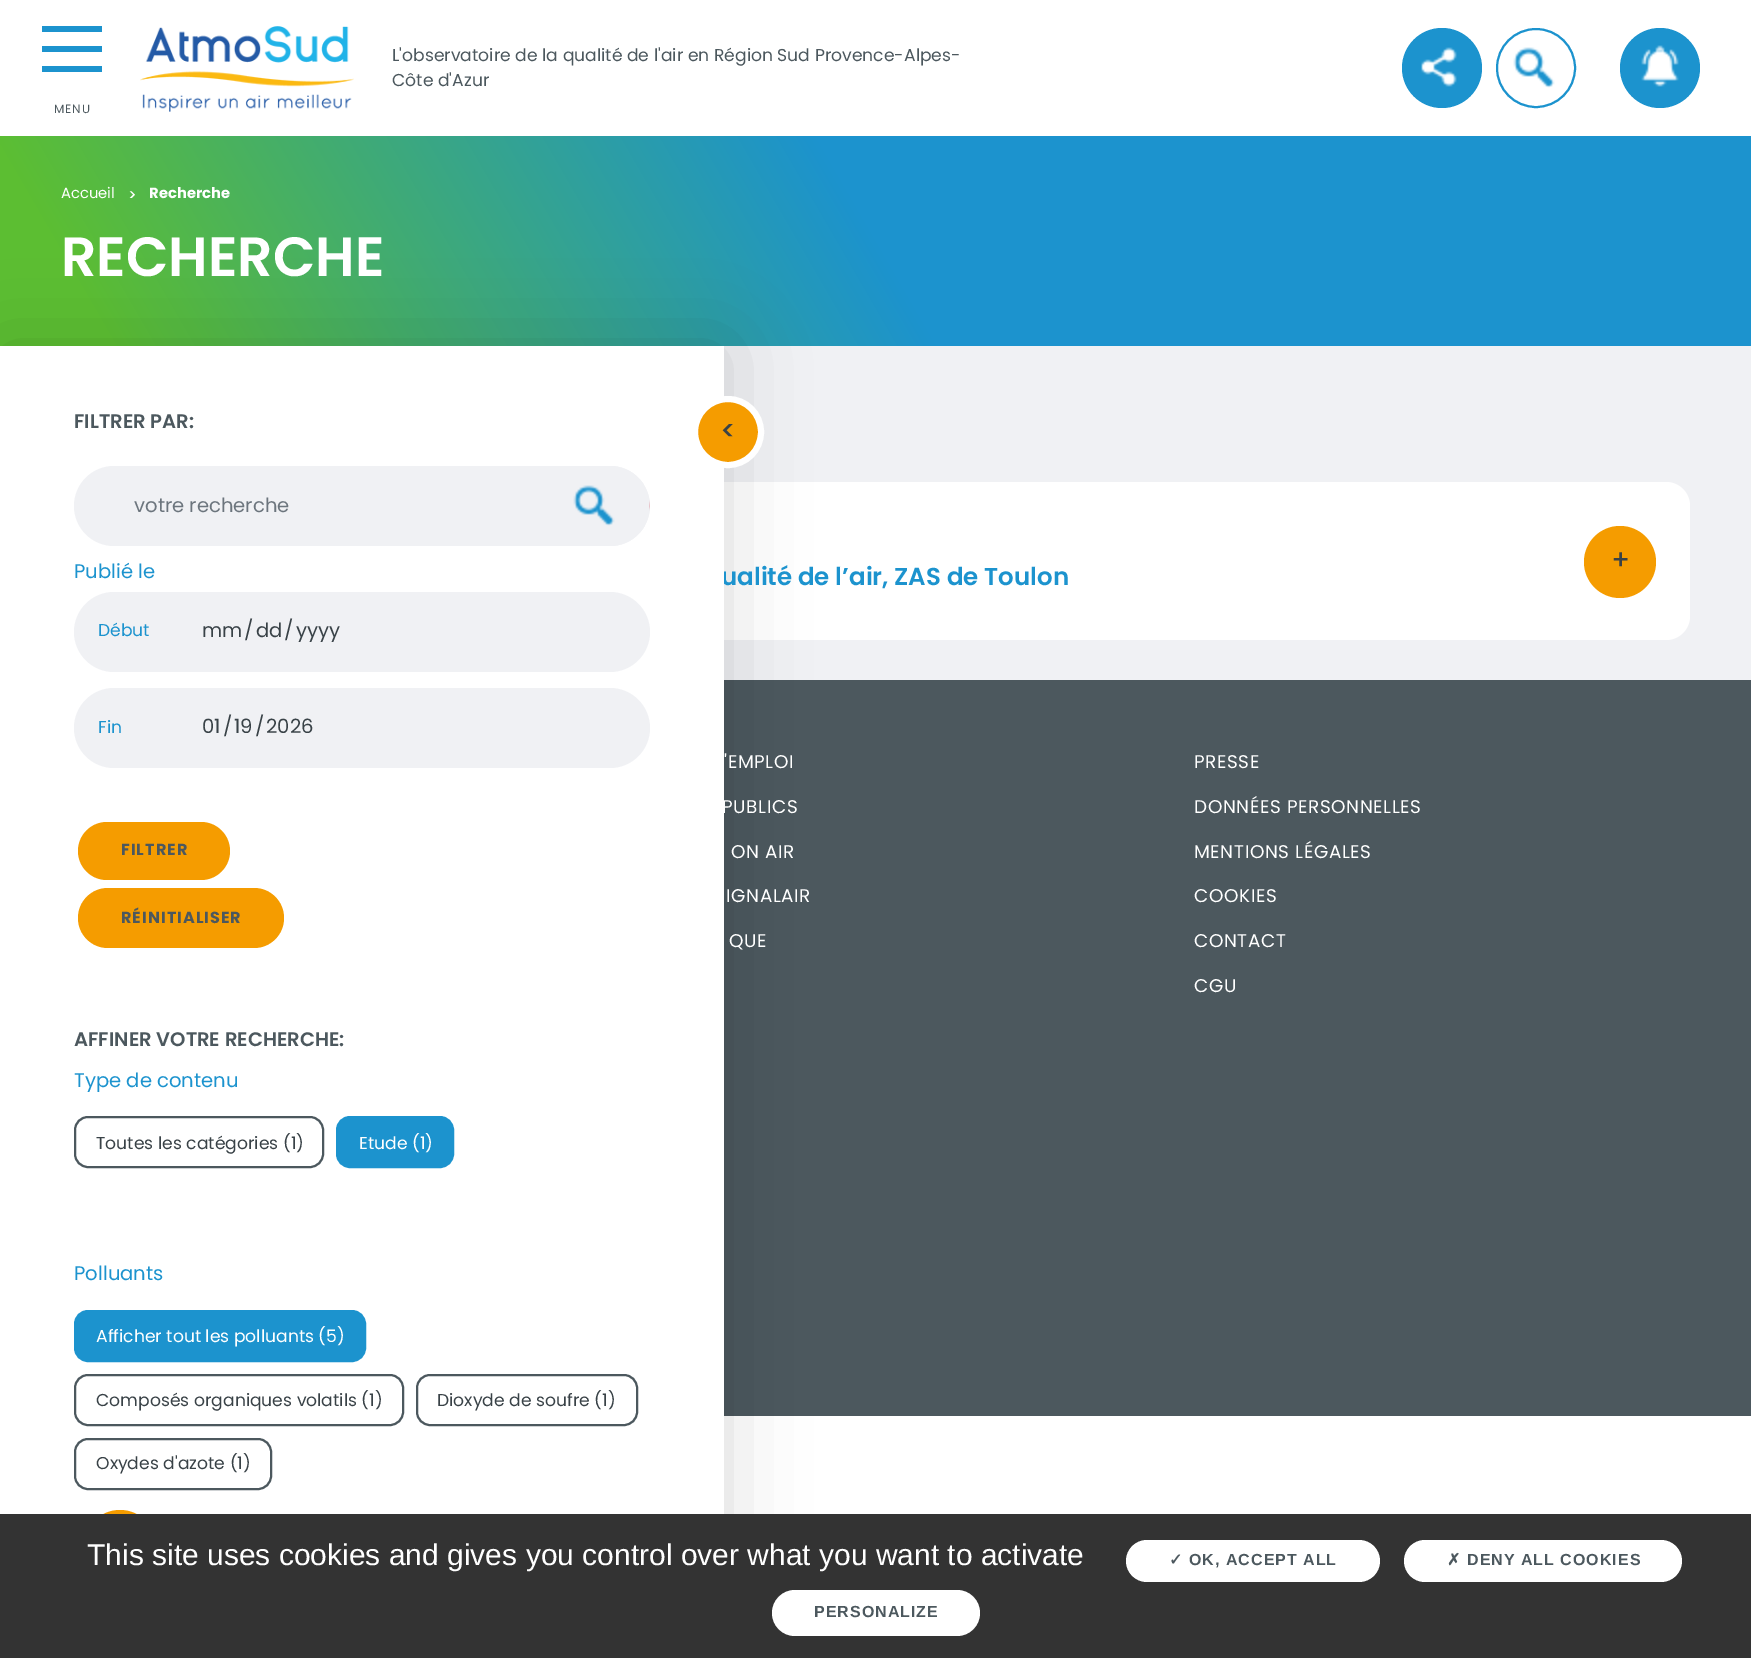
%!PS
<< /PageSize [1751 1658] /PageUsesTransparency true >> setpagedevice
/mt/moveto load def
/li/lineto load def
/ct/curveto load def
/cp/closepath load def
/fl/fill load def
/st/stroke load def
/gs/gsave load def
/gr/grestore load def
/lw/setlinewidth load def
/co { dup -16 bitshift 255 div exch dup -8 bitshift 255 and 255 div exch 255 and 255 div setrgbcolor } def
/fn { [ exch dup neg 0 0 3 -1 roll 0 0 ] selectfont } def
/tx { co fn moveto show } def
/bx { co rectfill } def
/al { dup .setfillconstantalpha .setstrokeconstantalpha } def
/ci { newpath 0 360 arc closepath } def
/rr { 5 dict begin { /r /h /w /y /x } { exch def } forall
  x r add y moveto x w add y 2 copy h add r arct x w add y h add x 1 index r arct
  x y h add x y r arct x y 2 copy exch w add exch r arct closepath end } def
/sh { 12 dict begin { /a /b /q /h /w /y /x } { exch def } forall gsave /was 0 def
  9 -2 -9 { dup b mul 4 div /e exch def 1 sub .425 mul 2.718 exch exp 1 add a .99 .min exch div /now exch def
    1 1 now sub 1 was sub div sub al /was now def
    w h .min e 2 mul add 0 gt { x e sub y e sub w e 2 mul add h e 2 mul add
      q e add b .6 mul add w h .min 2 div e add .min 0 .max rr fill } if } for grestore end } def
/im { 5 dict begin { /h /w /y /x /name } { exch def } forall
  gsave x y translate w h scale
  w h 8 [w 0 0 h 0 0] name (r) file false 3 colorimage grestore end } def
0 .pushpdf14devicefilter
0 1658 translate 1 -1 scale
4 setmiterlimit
0 0 1751 1658 16#FFFFFF bx
(media/1.raw) 140 26 214 86 im
16#1C93CE co
1442 68 40 ci fl
(media/2.raw) 1421 47 36 40 im
(media/3.raw) 1513 47 42 41 im
2 lw
1536 68 39 ci st
1660 68 40 ci fl
(media/4.raw) 1641 45 38 42 im
42 46 60 6 16#1C93CE bx
42 26 60 6 16#1C93CE bx
42 66 60 6 16#1C93CE bx
gs 0 136 mt 1751 136 li 1751 346 li 0 346 li cp clip newpath
<< /ShadingType 2 /ColorSpace /DeviceRGB /Coords [174 647 1578 -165] /Extend [true true] /Function << /FunctionType 3 /Domain [0 1] /Functions [<< /FunctionType 2 /Domain [0 1] /C0 [.361 .745 .196] /C1 [.361 .745 .196] /N 1 >> << /FunctionType 2 /Domain [0 1] /C0 [.361 .745 .196] /C1 [.11 .576 .808] /N 1 >> << /FunctionType 2 /Domain [0 1] /C0 [.11 .576 .808] /C1 [.11 .576 .808] /N 1 >>] /Bounds [.06 .5] /Encode [0 1 0 1 0 1] >> >> shfill gr
724 346 1027 334 16#F0F1F4 bx
16#FFFFFF co
162 482 1528 158 24 rr fl
724 680 1027 736 16#4C585E bx
16#000000 co
0 348 724 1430 0 40 .15 sh
16#F59C00 co
1620 562 36 ci fl
(L'observatoire de la qualité de l'air en Région Sud Provence-Alpes-) 392 61 /Poppins-Regular 17.2 16#4C585E tx
(Côte d'Azur) 392 86 /Poppins-Regular 17.2 16#4C585E tx
/Poppins-Regular 12 fn
54 113 mt 1 0 (MENU) ashow
(Accueil) 61 198 /Poppins-Regular 14.75 16#FFFFFF tx
(>) 128 200 /Poppins-Medium 14.75 16#FFFFFF tx
(Recherche) 149 198 /Poppins-Bold 14.75 16#FFFFFF tx
(RECHERCHE) 61 276 /Poppins-SemiBold 55.25 16#FFFFFF tx
(+) 1611 569 /Poppins-Medium 27 16#394247 tx
(ualité de l’air, ZAS de Toulon) 721 585 /Poppins-SemiBold 24.5 16#1C93CE tx
0 346 724 1168 16#FFFFFF bx
16#F59C00 co
120 1546 36 ci fl
78 888 206 60 30 rr fl
/Poppins-Bold 16 fn
16#4C585E co
121 923 mt 1 0 (RÉINITIALISER) ashow
16#F59C00 co
78 822 152 58 29 rr fl
16#4C585E co
121 855 mt 1 0 (FILTRER) ashow
16#F59C00 co
728 432 33 ci gs fl gr
16#FFFFFF co
6 lw
st
(<) 720 440 /Poppins-Medium 27 16#394247 tx
16#F0F1F4 co
114 688 mt 178 688 li 178 768 li 114 768 li 92 768 74 750 74 728 ct 74 706 92 688 114 688 ct cp fl
176 688 mt 610 688 li 632 688 650 706 650 728 ct 650 750 632 768 610 768 ct 176 768 li cp fl
(2026) 266 733 /Poppins-Regular 19.6 16#394247 tx
(/) 255 733 /Poppins-Regular 19.6 16#394247 tx
(19) 234 733 /Poppins-Regular 19.6 16#394247 tx
(/) 223 733 /Poppins-Regular 19.6 16#394247 tx
(01) 202 733 /Poppins-Regular 19.6 16#394247 tx
(Fin) 98 733 /Poppins-Regular 17.2 16#1C93CE tx
16#F0F1F4 co
114 592 mt 178 592 li 178 672 li 114 672 li 92 672 74 654 74 632 ct 74 610 92 592 114 592 ct cp fl
176 592 mt 610 592 li 632 592 650 610 650 632 ct 650 654 632 672 610 672 ct 176 672 li cp fl
(yyyy) 296 637 /Poppins-Regular 19.6 16#394247 tx
(/) 284 637 /Poppins-Regular 19.6 16#394247 tx
(dd) 256 637 /Poppins-Regular 19.6 16#394247 tx
(/) 244 637 /Poppins-Regular 19.6 16#394247 tx
(mm) 202 637 /Poppins-Regular 19.6 16#394247 tx
(Début) 98 636 /Poppins-Regular 17.2 16#1C93CE tx
16#F0F1F4 co
540 466 mt 610 466 li 632 466 650 484 650 506 ct 650 528 632 546 610 546 ct 540 546 li cp fl
114 466 mt 542 466 li 542 546 li 114 546 li 92 546 74 528 74 506 ct 74 484 92 466 114 466 ct cp fl
(votre recherche) 134 512 /Poppins-Regular 19.6 16#6C757D tx
16#F0F1F4 co
570 466 mt 610 466 li 632 466 650 484 650 506 ct 650 528 632 546 610 546 ct 570 546 li cp fl
(media/5.raw) 573 485 77 41 im
16#4C585E co
2 lw
75 1439 196 50 13 rr st
(Oxydes d'azote \(1\)) 96 1469 /Poppins-Regular 17.2 16#394247 tx
16#4C585E co
417 1375 220 50 13 rr st
(Dioxyde de soufre \(1\)) 437 1406 /Poppins-Regular 17.2 16#394247 tx
16#4C585E co
75 1375 328 50 13 rr st
(Composés organiques volatils \(1\)) 96 1406 /Poppins-Regular 17.2 16#394247 tx
16#1C93CE co
75 1311 290 50 13 rr gs fl gr
st
(Afficher tout les polluants \(5\)) 96 1342 /Poppins-Regular 17.2 16#FFFFFF tx
(Polluants) 74 1280 /Poppins-Regular 19.6 16#1C93CE tx
337 1117 116 50 13 rr gs fl gr
st
(Etude \(1\)) 359 1149 /Poppins-Regular 17.2 16#FFFFFF tx
16#4C585E co
75 1117 248 50 13 rr st
(Toutes les catégories \(1\)) 96 1149 /Poppins-Regular 17.2 16#394247 tx
(Type de contenu) 74 1087 /Poppins-Regular 19.6 16#1C93CE tx
(AFFINER VOTRE RECHERCHE:) 74 1046 /Poppins-SemiBold 19.6 16#4C585E tx
(Publié le) 74 578 /Poppins-Regular 19.6 16#1C93CE tx
(FILTRER PAR:) 74 428 /Poppins-SemiBold 19.6 16#4C585E tx
/Poppins-Regular 18.4 fn
16#FFFFFF co
724 768 mt .6 0 ('EMPLOI) ashow
1194 768 mt .6 0 (PRESSE) ashow
722 813 mt .6 0 (PUBLICS) ashow
1194 813 mt .6 0 (DONNÉES PERSONNELLES) ashow
731 858 mt .6 0 (ON AIR) ashow
1194 858 mt .6 0 (MENTIONS LÉGALES) ashow
726 902 mt .6 0 (IGNALAIR) ashow
1194 902 mt .6 0 (COOKIES) ashow
729 947 mt .6 0 (QUE) ashow
1194 947 mt .6 0 (CONTACT) ashow
1194 992 mt .6 0 (CGU) ashow
0 1514 1751 144 16#333333 bx
(This site uses cookies and gives you control over what you want to activate) 87 1565 /LiberationSans-Regular 30 16#FFFFFF tx
1126 1540 254 42 21 rr fl
/DejaVuSans-Bold 16 fn
16#4C585E co
1169 1565 mt 1 0 (✓) ashow
/LiberationSans-Bold 16 fn
1189 1565 mt 1 0 (OK, ACCEPT ALL) ashow
16#FFFFFF co
1404 1540 278 42 21 rr fl
/DejaVuSans-Bold 16 fn
16#4C585E co
1447 1565 mt 1 0 (✗) ashow
/LiberationSans-Bold 16 fn
1467 1565 mt 1 0 (DENY ALL COOKIES) ashow
16#FFFFFF co
772 1590 208 46 23 rr fl
16#4C585E co
814 1617 mt 1 0 (PERSONALIZE) ashow
.poppdf14devicefilter showpage
